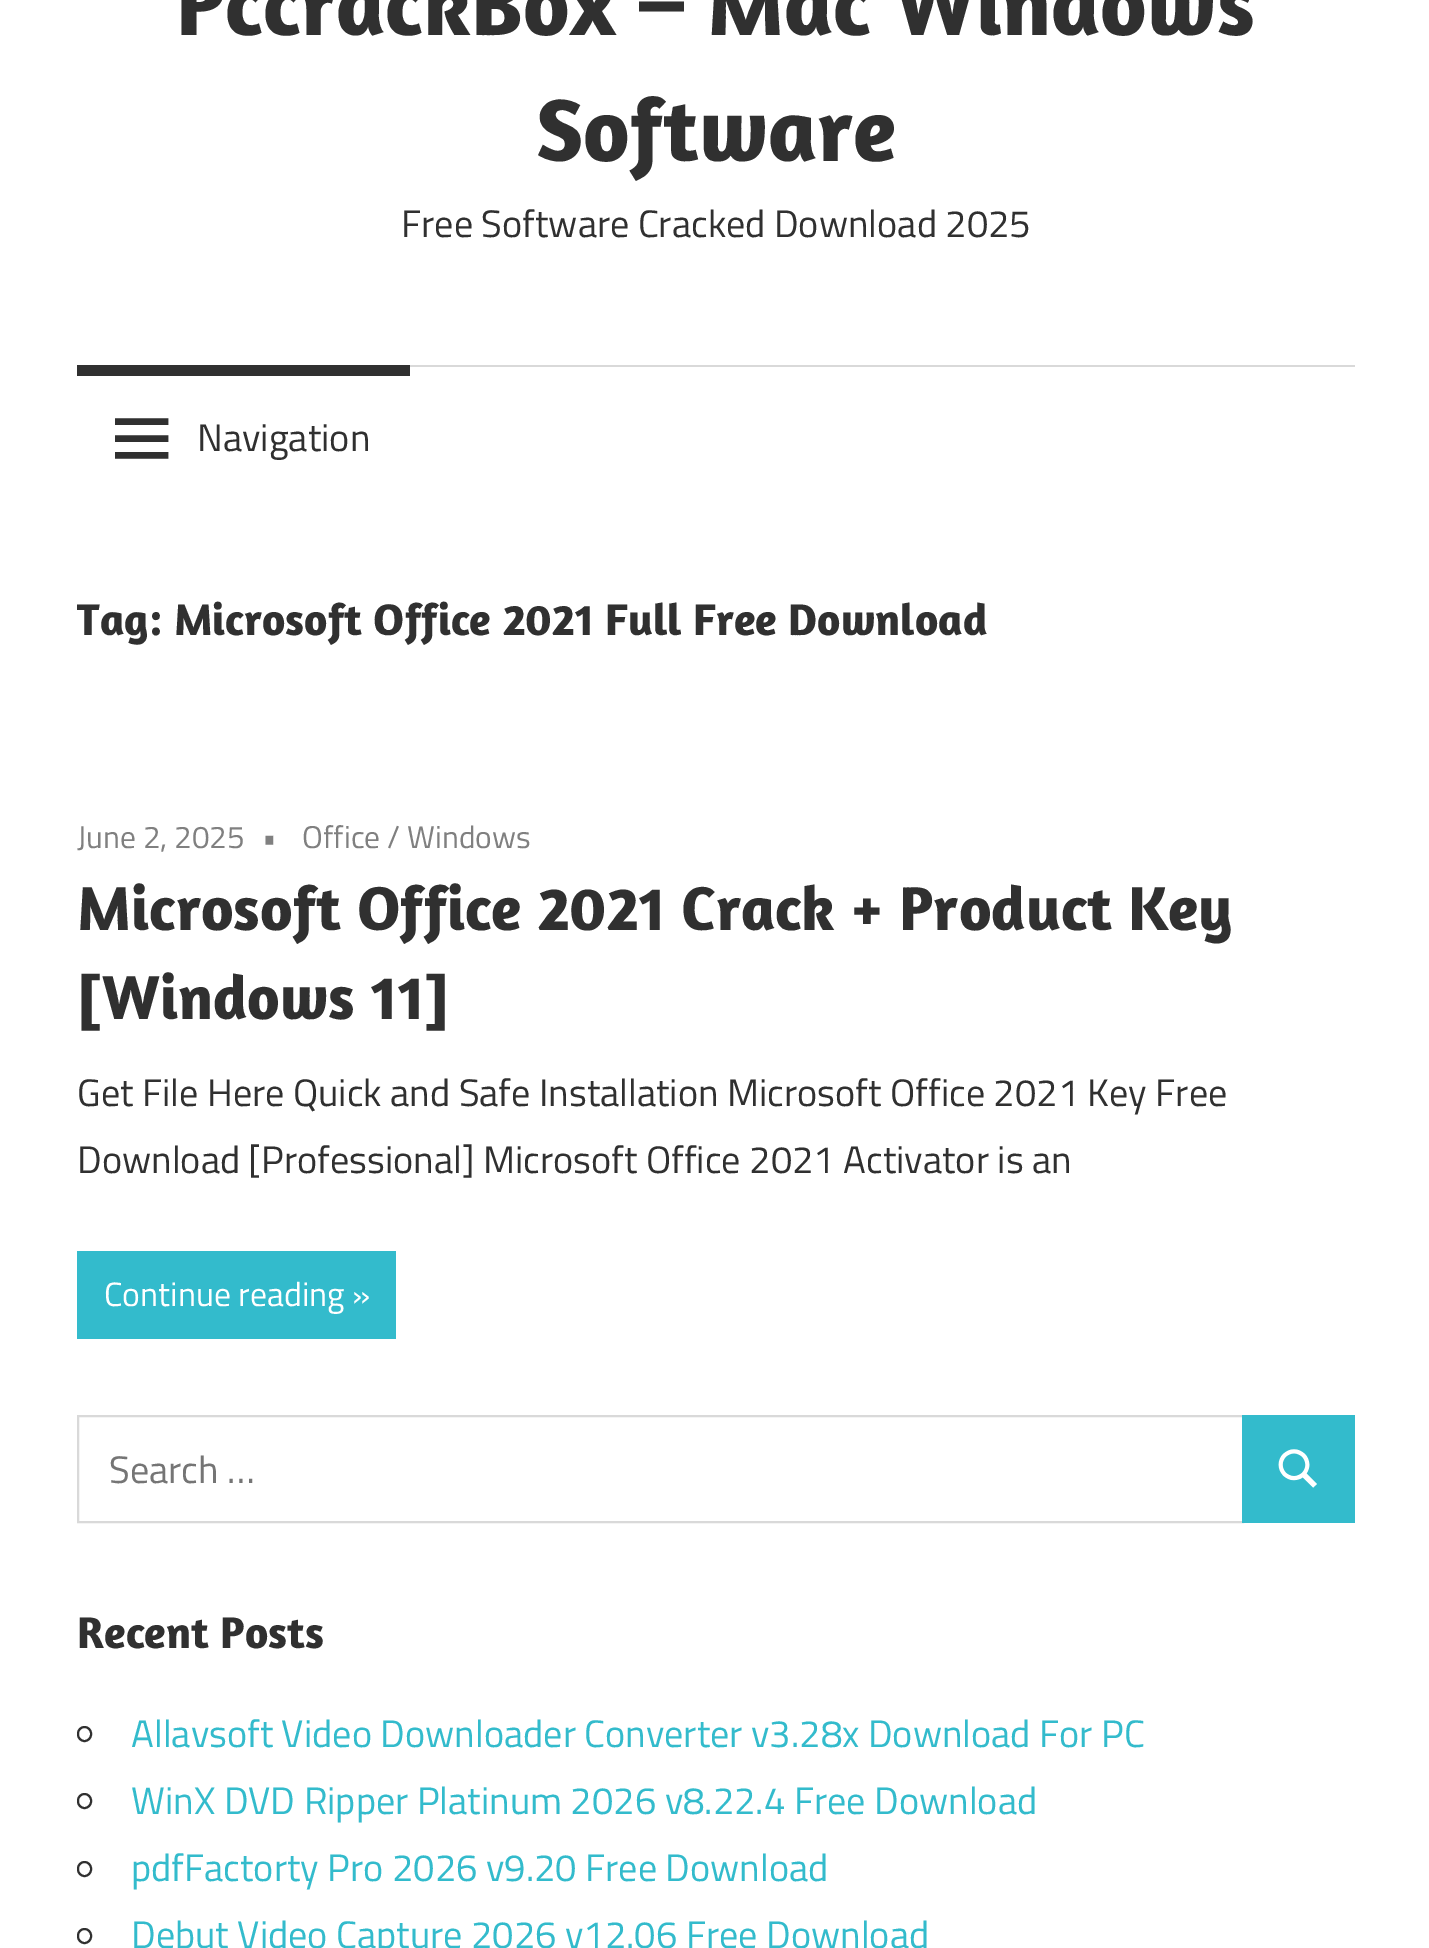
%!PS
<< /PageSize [1429 1948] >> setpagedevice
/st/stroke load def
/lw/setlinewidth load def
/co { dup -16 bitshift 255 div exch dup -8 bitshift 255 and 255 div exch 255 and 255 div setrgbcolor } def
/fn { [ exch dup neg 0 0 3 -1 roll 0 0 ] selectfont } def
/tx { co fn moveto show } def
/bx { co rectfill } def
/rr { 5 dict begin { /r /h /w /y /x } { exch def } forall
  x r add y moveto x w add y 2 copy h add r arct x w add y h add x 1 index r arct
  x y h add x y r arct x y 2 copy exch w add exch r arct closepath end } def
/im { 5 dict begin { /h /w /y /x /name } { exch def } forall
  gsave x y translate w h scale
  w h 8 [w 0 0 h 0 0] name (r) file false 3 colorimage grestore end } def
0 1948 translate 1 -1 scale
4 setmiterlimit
0 0 1429 1948 16#FFFFFF bx
410 365 945 2 16#D9D9D9 bx
77 365 333 11 16#303030 bx
(media/1.raw) 115 418 54 41 im
77 1251 319 88 16#33BBCC bx
16#D9D9D9 co
2 lw
78 1416 1165 106 rectstroke
1242 1415 113 108 16#33BBCC bx
(media/2.raw) 1278 1449 39 39 im
16#303030 co
78 1727 13 14 6.5 rr st
78 1794 13 14 6.5 rr st
78 1862 13 14 6.5 rr st
78 1929 13 14 6.5 rr st
(PccrackBox – Mac Windows) 176 35 /Amaranth-Bold 90 16#303030 tx
(Software) 536 161 /Amaranth-Bold 90 16#303030 tx
(Free Software Cracked Download 2025) 401 237 /TitilliumWeb-Regular 38.25 16#303030 tx
(Navigation) 197 451 /TitilliumWeb-Regular 38.25 16#303030 tx
(Tag: Microsoft Office 2021 Full Free Download) 77 635 /Amaranth-Bold 45 16#303030 tx
(June 2, 2025) 77 848 /TitilliumWeb-Regular 31.5 16#808080 tx
(•) 262 848 /TitilliumWeb-Regular 31.5 16#808080 tx
(Office / Windows) 302 848 /TitilliumWeb-Regular 31.5 16#808080 tx
(Microsoft Office 2021 Crack + Product Key) 77 930 /Amaranth-Bold 63 16#303030 tx
([Windows 11]) 77 1019 /Amaranth-Bold 63 16#303030 tx
(Get File Here Quick and Safe Installation Microsoft Office 2021 Key Free) 77 1106 /TitilliumWeb-Regular 38.25 16#303030 tx
(Download [Professional] Microsoft Office 2021 Activator is an) 77 1173 /TitilliumWeb-Regular 38.25 16#303030 tx
(Continue reading ») 104 1306 /TitilliumWeb-Regular 33.75 16#FFFFFF tx
(Search …) 109 1483 /TitilliumWeb-Regular 38.25 16#757575 tx
(Recent Posts) 77 1648 /Amaranth-Bold 45 16#303030 tx
(Allavsoft Video Downloader Converter v3.28x Download For PC) 131 1747 /TitilliumWeb-Regular 38.25 16#33BBCC tx
(WinX DVD Ripper Platinum 2026 v8.22.4 Free Download) 131 1814 /TitilliumWeb-Regular 38.25 16#33BBCC tx
(pdfFactorty Pro 2026 v9.20 Free Download) 131 1881 /TitilliumWeb-Regular 38.25 16#33BBCC tx
(Debut Video Capture 2026 v12.06 Free Download) 131 1948 /TitilliumWeb-Regular 38.25 16#33BBCC tx
showpage
